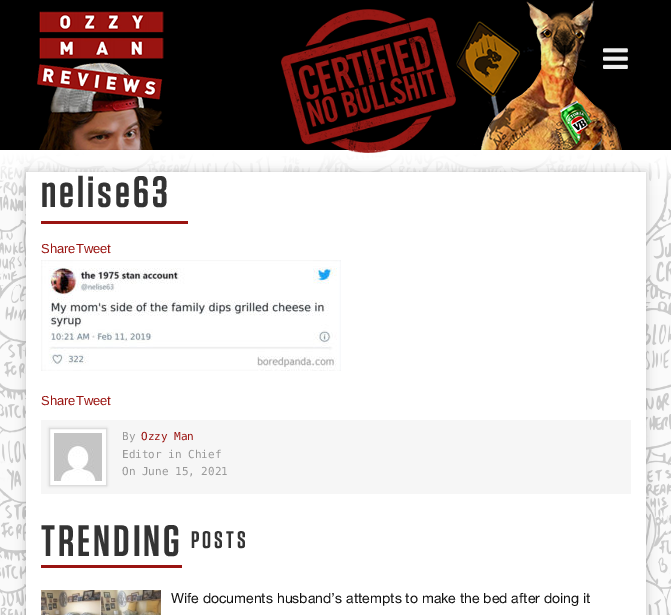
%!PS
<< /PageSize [671 615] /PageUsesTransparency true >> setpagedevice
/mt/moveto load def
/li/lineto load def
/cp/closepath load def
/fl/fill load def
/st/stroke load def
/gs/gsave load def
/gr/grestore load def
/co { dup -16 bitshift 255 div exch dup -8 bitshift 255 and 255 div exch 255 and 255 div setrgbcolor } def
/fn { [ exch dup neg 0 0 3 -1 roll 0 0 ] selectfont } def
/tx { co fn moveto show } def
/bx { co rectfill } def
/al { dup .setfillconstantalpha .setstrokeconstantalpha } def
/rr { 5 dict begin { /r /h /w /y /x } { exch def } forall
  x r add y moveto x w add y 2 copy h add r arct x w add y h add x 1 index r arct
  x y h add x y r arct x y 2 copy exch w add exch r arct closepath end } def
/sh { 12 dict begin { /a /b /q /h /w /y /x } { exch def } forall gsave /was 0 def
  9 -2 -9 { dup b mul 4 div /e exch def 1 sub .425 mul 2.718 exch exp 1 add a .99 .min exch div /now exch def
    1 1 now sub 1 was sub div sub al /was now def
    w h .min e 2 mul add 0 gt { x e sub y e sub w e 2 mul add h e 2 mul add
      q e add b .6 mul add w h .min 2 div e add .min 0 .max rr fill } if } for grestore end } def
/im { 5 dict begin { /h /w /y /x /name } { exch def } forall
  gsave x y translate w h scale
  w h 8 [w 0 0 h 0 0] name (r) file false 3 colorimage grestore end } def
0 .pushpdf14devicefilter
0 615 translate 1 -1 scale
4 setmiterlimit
0 0 671 615 16#FAFAFA bx
(media/1.raw) 0 153 671 462 im
0 0 671 150 16#000000 bx
(media/2.raw) 37 11 127 139 im
(media/6.raw) 0 152 671 45 im
0 150 671 2 16#FFFFFF bx
(media/3.raw) 281 9 175 144 im
(media/4.raw) 456 1 166 149 im
(media/5.raw) 603 48 25 21 im
16#000000 co
26 172 620 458 0 5 .2 sh
26 172 620 443 16#FFFFFF bx
41 221 147 3 16#9A1411 bx
(media/7.raw) 41 260 300 111 im
41 420 590 74 16#F6F6F6 bx
16#D7D7D7 co
49 428 58 58 0 1.5 1 sh
16#FFFFFF co
49.5 428.5 mt 106.5 428.5 li 106.5 485.5 li 49.5 485.5 li cp gs fl gr
16#DDDDDD co
st
(media/8.raw) 54 433 48 48 im
41 565 141 3 16#9A1411 bx
(media/9.raw) 41 590 120 25 im
/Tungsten-SemiBold 44 fn
16#333333 co
41 207 mt 3 0 (nelise63) ashow
(ShareTweet) 41 253 /LiberationSans-Regular 13 16#9A1411 tx
(ShareTweet) 41 405 /LiberationSans-Regular 13 16#9A1411 tx
(By) 122 440 /DejaVuSansMono-Regular 11 16#999999 tx
(Ozzy Man) 141 440 /DejaVuSansMono-Regular 11 16#9A1411 tx
(Editor in Chief) 122 458 /DejaVuSansMono-Regular 11 16#999999 tx
(On June 15, 2021) 122 475 /DejaVuSansMono-Regular 11 16#999999 tx
/Tungsten-SemiBold 44 fn
16#333333 co
41 556 mt 3 0 (TRENDING) ashow
/Tungsten-SemiBold 24 fn
191 548 mt 3 0 (POSTS) ashow
(Wife documents husband’s attempts to make the bed after doing it) 171 603 /HelveticaNeue-Regular 14 16#111111 tx
.poppdf14devicefilter showpage
